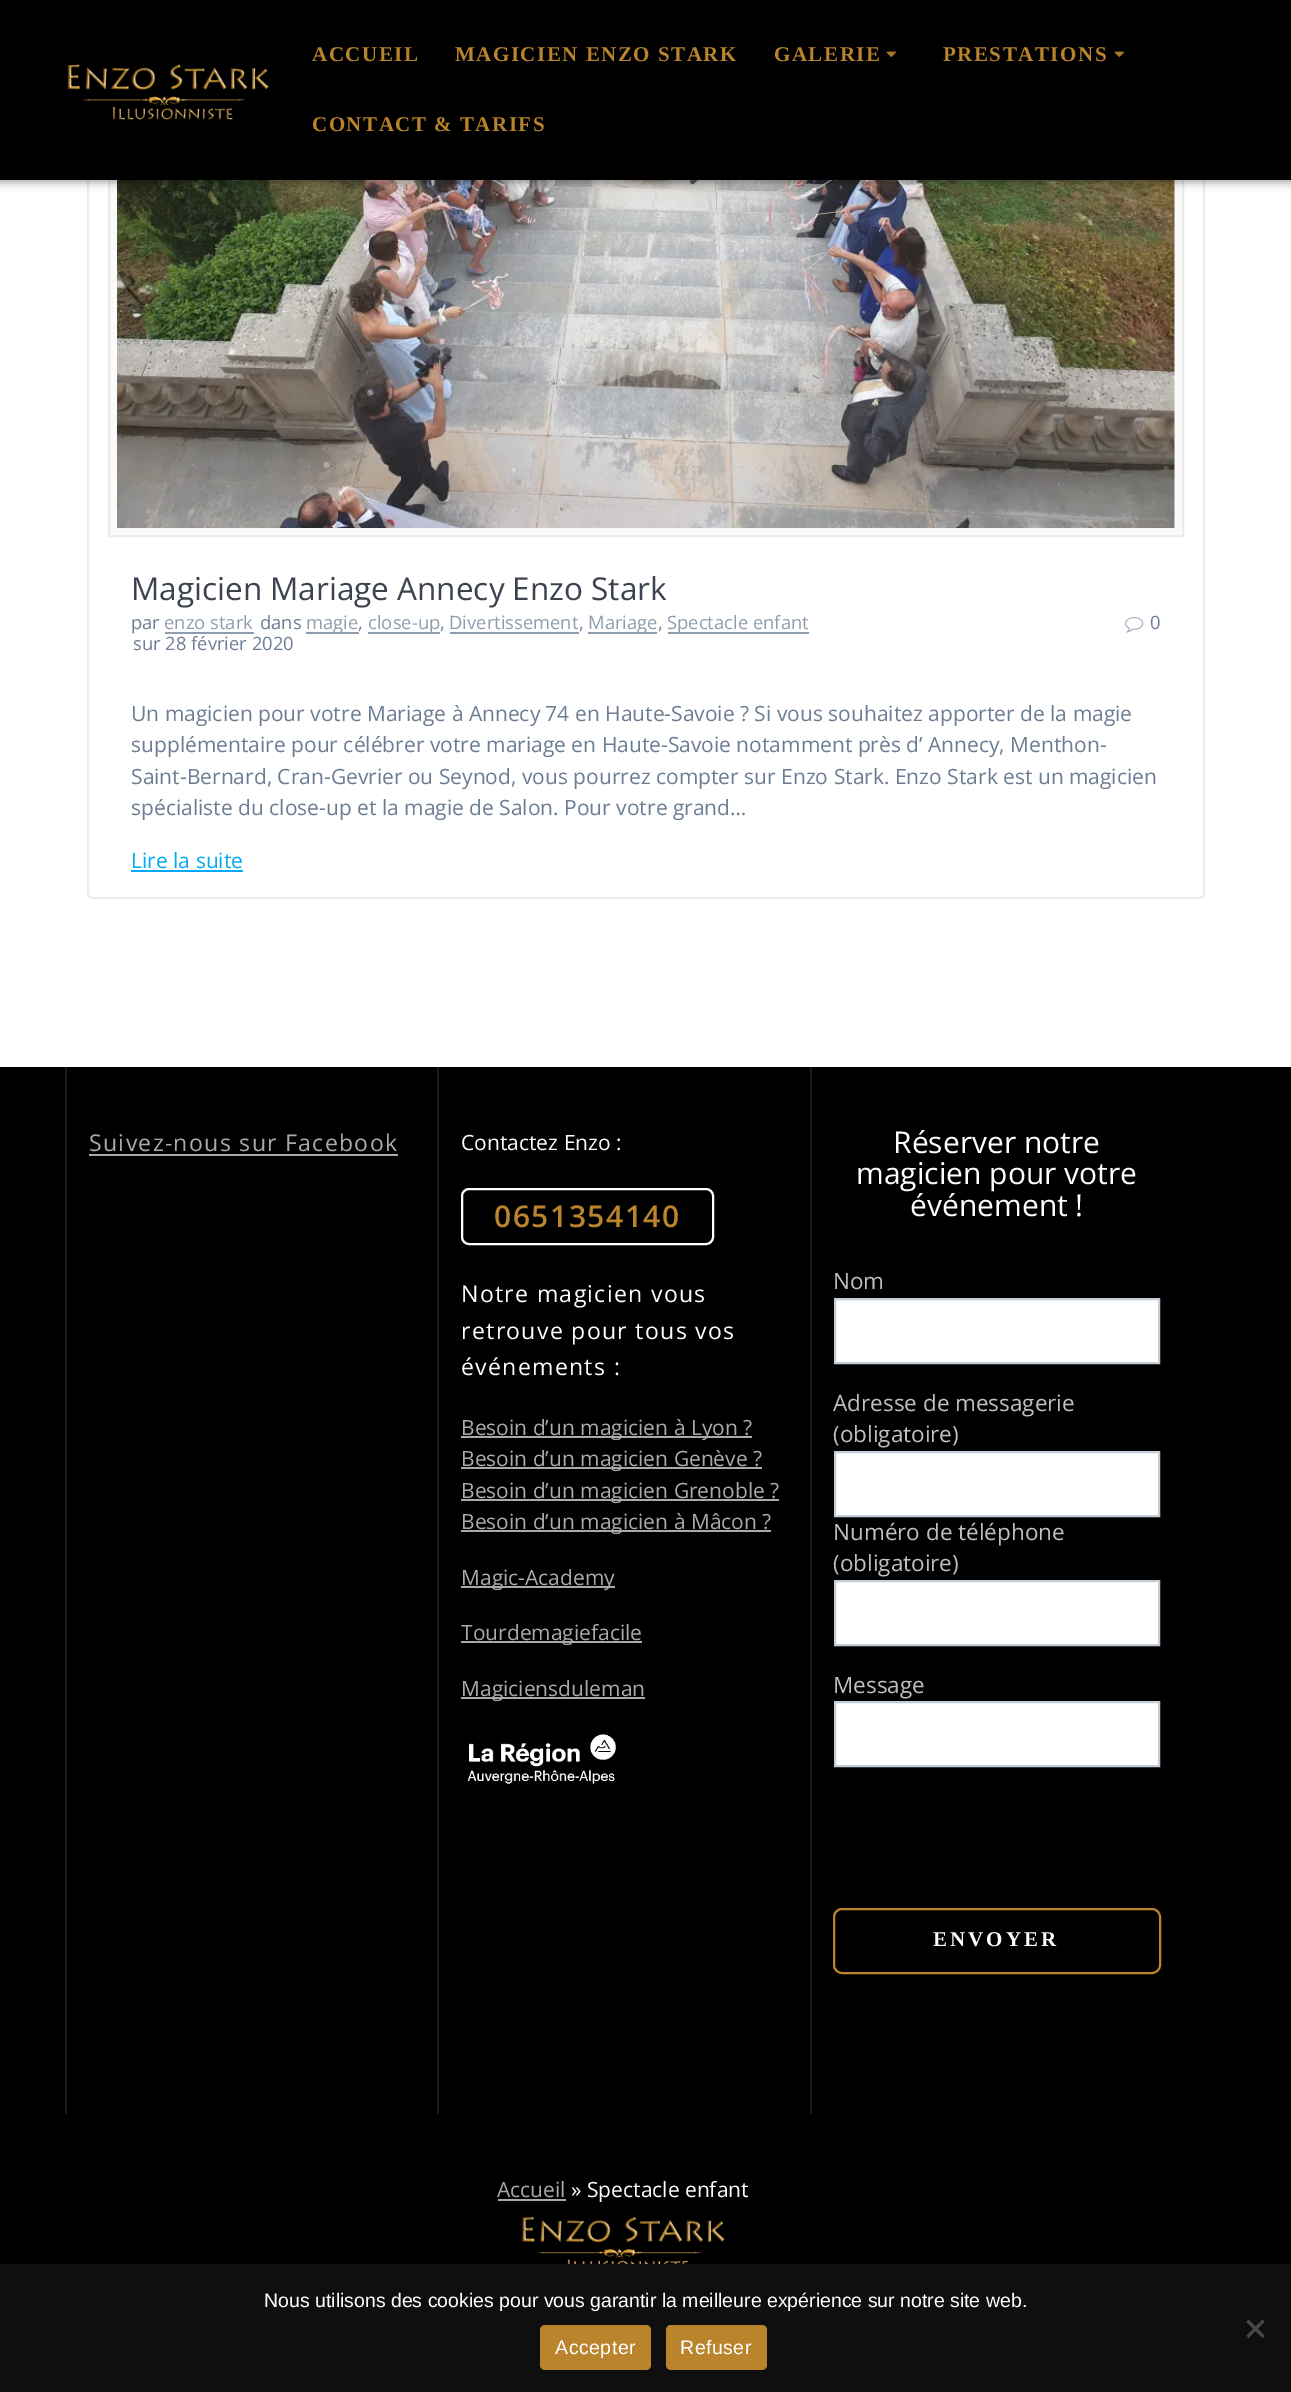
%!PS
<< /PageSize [1291 2392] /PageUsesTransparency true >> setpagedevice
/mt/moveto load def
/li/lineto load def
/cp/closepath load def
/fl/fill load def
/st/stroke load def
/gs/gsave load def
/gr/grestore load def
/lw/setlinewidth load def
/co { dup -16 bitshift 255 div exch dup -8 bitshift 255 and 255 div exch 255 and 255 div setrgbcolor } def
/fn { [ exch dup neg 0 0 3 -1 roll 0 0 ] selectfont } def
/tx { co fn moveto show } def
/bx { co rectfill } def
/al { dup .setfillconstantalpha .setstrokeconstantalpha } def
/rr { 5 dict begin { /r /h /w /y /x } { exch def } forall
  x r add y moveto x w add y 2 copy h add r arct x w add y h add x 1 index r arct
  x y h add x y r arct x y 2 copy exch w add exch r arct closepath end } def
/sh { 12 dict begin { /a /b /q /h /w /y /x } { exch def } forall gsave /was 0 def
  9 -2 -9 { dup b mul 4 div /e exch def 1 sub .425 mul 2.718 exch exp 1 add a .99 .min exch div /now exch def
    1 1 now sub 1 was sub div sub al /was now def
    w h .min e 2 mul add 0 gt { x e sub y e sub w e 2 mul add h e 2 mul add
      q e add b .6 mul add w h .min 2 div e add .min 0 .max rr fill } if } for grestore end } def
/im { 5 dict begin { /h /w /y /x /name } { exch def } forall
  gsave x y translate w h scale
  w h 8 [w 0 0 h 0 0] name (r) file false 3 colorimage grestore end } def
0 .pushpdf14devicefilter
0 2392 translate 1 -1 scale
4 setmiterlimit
0 0 1291 2392 16#FFFFFF bx
16#ECECEC co
2 lw
88 -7 1116 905 5 rr st
110 180 1072 355 16#FAFAFA bx
16#ECECEC co
109 -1 1074 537 rectstroke
(media/3.raw) 117 180 1058 348 im
16#000000 co
-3 -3 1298 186 0 4 .33 sh
0 0 1291 180 16#000000 bx
(media/1.raw) 67 64 202 56 im
(media/2.raw) 886 51 10 6 im
(media/2.raw) 1114 51 10 6 im
165 632 89 2 16#8E9DAE bx
306 632 53 2 16#8E9DAE bx
368 632 72 2 16#8E9DAE bx
450 632 129 2 16#8E9DAE bx
588 632 69 2 16#8E9DAE bx
668 632 141 2 16#8E9DAE bx
(media/4.raw) 1125 616 19 17 im
131 870 112 2 16#03A9F4 bx
0 1067 1291 1197 16#000000 bx
65 1067 2 1047 16#1A1A1A bx
89 1154 309 2 16#AAAAAA bx
437 1067 2 1047 16#1A1A1A bx
16#FFFFFF co
462 1189 251 55 7 rr st
461 1436 291 2 16#AAAAAA bx
461 1467 301 2 16#AAAAAA bx
461 1499 318 2 16#AAAAAA bx
461 1530 310 2 16#AAAAAA bx
461 1586 154 2 16#AAAAAA bx
461 1641 181 2 16#AAAAAA bx
461 1697 184 2 16#AAAAAA bx
(media/5.raw) 467 1734 149 50 im
810 1067 2 1047 16#1A1A1A bx
16#FFFFFF co
835 1299 mt 1159 1299 li 1159 1363 li 835 1363 li cp gs fl gr
16#C4CDD5 co
st
16#FFFFFF co
835 1452 mt 1159 1452 li 1159 1516 li 835 1516 li cp gs fl gr
16#C4CDD5 co
st
16#FFFFFF co
835 1581 mt 1159 1581 li 1159 1645 li 835 1645 li cp gs fl gr
16#C4CDD5 co
st
16#FFFFFF co
835 1702 mt 1159 1702 li 1159 1766 li 835 1766 li cp gs fl gr
16#C4CDD5 co
st
16#B9842B co
834 1909 326 64 8 rr st
498 2199 68 2 16#AAAAAA bx
(media/6.raw) 522 2205 203 59 im
0 2264 1291 128 16#0F0F0F bx
16#484848 co
1262.5 2319.5 mt 1264.5 2322 li 1248.5 2338 li 1246.5 2335.5 li cp fl
1246.5 2322 mt 1248.5 2319.5 li 1264.5 2335.5 li 1262.5 2338 li cp fl
16#B9842B co
540 2325 111 45 5 rr fl
666 2325 101 45 5 rr fl
/LiberationSerif-Bold 21 fn
312 61 mt 1.5 0 (ACCUEIL) ashow
455 61 mt 1.5 0 (MAGICIEN ENZO STARK) ashow
774 61 mt 1.5 0 (GALERIE) ashow
943 61 mt 1.5 0 (PRESTATIONS) ashow
312 131 mt 1.5 0 (CONTACT & TARIFS) ashow
(Magicien Mariage Annecy Enzo Stark) 131 600 /OpenSans-Regular 31.5 16#3C424F tx
(par) 131 629 /OpenSans-Regular 18.4 16#6B7C93 tx
(enzo stark) 164 629 /OpenSans-Regular 18.4 16#8E9DAE tx
(dans) 260 629 /OpenSans-Regular 18.4 16#6B7C93 tx
(magie) 306 629 /OpenSans-Regular 18.4 16#8E9DAE tx
(,) 358 629 /OpenSans-Regular 18.4 16#6B7C93 tx
(close-up) 368 629 /OpenSans-Regular 18.4 16#8E9DAE tx
(,) 440 629 /OpenSans-Regular 18.4 16#6B7C93 tx
(Divertissement) 449 629 /OpenSans-Regular 18.4 16#8E9DAE tx
(,) 579 629 /OpenSans-Regular 18.4 16#6B7C93 tx
(Mariage) 588 629 /OpenSans-Regular 18.4 16#8E9DAE tx
(,) 658 629 /OpenSans-Regular 18.4 16#6B7C93 tx
(Spectacle enfant) 667 629 /OpenSans-Regular 18.4 16#8E9DAE tx
(sur 28 février 2020) 133 650 /OpenSans-Regular 18.4 16#6B7C93 tx
(0) 1150 629 /OpenSans-Regular 18.4 16#6B7C93 tx
(Un magicien pour votre Mariage à Annecy 74 en Haute-Savoie ? Si vous souhaitez apporter de la magie) 131 721 /OpenSans-Regular 21 16#6B7C93 tx
(supplémentaire pour célébrer votre mariage en Haute-Savoie notamment près d’ Annecy, Menthon-) 131 752 /OpenSans-Regular 21 16#6B7C93 tx
(Saint-Bernard, Cran-Gevrier ou Seynod, vous pourrez compter sur Enzo Stark. Enzo Stark est un magicien) 131 784 /OpenSans-Regular 21 16#6B7C93 tx
(spécialiste du close-up et la magie de Salon. Pour votre grand…) 131 815 /OpenSans-Regular 21 16#6B7C93 tx
(Lire la suite) 131 868 /OpenSans-Regular 21 16#03A9F4 tx
/OpenSans-Regular 23.1 fn
16#AAAAAA co
89 1151 mt 1.3 0 (Suivez-nous sur Facebook) ashow
(Contactez Enzo :) 461 1150 /OpenSans-Regular 21 16#FFFFFF tx
/OpenSans-SemiBold 30 fn
16#B9842B co
494 1227 mt 1.5 0 (0651354140) ashow
/OpenSans-Regular 23.1 fn
16#FFFFFF co
461 1302 mt 1.3 0 (Notre magicien vous) ashow
461 1339 mt 1.3 0 (retrouve pour tous vos) ashow
461 1375 mt 1.3 0 (événements :) ashow
(Besoin d’un magicien à Lyon ?) 461 1435 /OpenSans-Regular 21 16#AAAAAA tx
(Besoin d’un magicien Genève ?) 461 1466 /OpenSans-Regular 21 16#AAAAAA tx
(Besoin d’un magicien Grenoble ?) 461 1498 /OpenSans-Regular 21 16#AAAAAA tx
(Besoin d’un magicien à Mâcon ?) 461 1529 /OpenSans-Regular 21 16#AAAAAA tx
(Magic-Academy) 461 1585 /OpenSans-Regular 21 16#AAAAAA tx
(Tourdemagiefacile) 461 1640 /OpenSans-Regular 21 16#AAAAAA tx
(Magiciensduleman) 461 1696 /OpenSans-Regular 21 16#AAAAAA tx
(Réserver notre) 893 1153 /OpenSans-Regular 30 16#FFFFFF tx
(magicien pour votre) 856 1184 /OpenSans-Regular 30 16#FFFFFF tx
(événement !) 910 1216 /OpenSans-Regular 30 16#FFFFFF tx
(Nom) 833 1289 /OpenSans-Regular 22.5 16#C0C0C0 tx
(Adresse de messagerie) 833 1411 /OpenSans-Regular 22.5 16#C0C0C0 tx
(\(obligatoire\)) 833 1442 /OpenSans-Regular 22.5 16#C0C0C0 tx
(Numéro de téléphone) 833 1540 /OpenSans-Regular 22.5 16#C0C0C0 tx
(\(obligatoire\)) 833 1571 /OpenSans-Regular 22.5 16#C0C0C0 tx
(Message) 833 1693 /OpenSans-Regular 22.5 16#C0C0C0 tx
/LiberationSerif-Bold 21 fn
16#FFFFFF co
933 1946 mt 3 0 (ENVOYER) ashow
(Accueil) 497 2197 /OpenSans-Regular 21 16#AAAAAA tx
(» Spectacle enfant) 571 2197 /OpenSans-Regular 21 16#FFFFFF tx
(Nous utilisons des cookies pour vous garantir la meilleure expérience sur notre site web.) 264 2307 /LiberationSans-Regular 19.5 16#FFFFFF tx
555 2354 mt .5 0 (Accepter) ashow
680 2354 mt .5 0 (Refuser) ashow
.poppdf14devicefilter showpage
